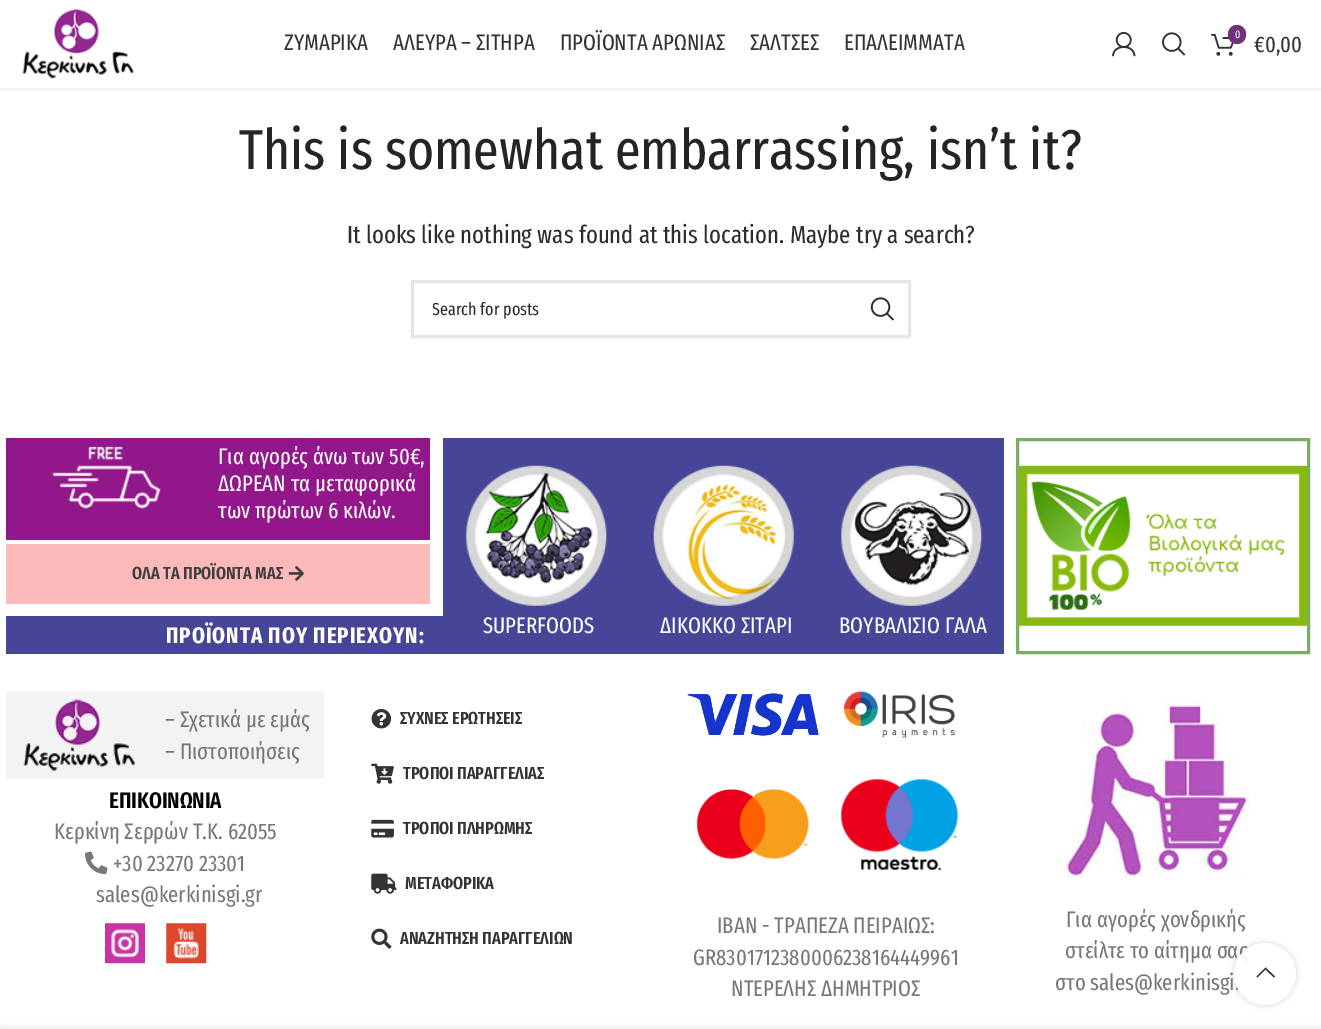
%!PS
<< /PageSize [1321 1029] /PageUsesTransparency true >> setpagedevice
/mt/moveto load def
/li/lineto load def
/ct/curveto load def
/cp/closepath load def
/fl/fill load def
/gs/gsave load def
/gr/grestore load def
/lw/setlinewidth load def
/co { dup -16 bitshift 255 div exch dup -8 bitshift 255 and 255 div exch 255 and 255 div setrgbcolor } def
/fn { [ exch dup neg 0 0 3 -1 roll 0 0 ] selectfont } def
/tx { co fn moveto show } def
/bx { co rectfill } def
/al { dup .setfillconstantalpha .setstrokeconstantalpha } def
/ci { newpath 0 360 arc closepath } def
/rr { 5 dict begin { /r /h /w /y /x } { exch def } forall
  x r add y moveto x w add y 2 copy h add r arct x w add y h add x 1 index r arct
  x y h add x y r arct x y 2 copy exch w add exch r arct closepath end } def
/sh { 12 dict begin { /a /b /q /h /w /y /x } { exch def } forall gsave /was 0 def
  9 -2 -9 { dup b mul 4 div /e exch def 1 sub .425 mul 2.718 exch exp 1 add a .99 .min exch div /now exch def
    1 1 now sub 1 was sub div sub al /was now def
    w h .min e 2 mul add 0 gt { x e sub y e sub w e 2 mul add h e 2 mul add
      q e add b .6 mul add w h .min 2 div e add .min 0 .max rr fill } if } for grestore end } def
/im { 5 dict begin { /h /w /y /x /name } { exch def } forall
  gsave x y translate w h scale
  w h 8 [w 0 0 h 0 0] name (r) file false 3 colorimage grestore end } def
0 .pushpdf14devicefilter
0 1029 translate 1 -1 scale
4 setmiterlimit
0 0 1321 1029 16#FFFFFF bx
16#000000 co
0 1 1321 88 0 2 .1 sh
0 0 1321 88 16#FFFFFF bx
(media/1.raw) 22 9 112 70 im
(media/2.raw) 1112 32 24 25 im
(media/3.raw) 1162 32 24 24 im
(media/4.raw) 1211 33 23 23 im
16#70327A co
1228 25 18 19 9 rr fl
16#E6E6E6 co
3 lw
412.5 281.5 497 55 rectstroke
(media/5.raw) 870 297 24 24 im
6 438 424 102 16#92178A bx
(media/6.raw) 52 446 109 63 im
6 544 424 60 16#FCB9B9 bx
(media/7.raw) 288 566 16 15 im
6 616 437 38 16#464598 bx
443 438 561 216 16#464598 bx
(media/8.raw) 466 465 141 141 im
(media/9.raw) 653 465 141 141 im
(media/10.raw) 841 465 141 141 im
16#7AAD66 co
1017.5 439.5 291 213 rectstroke
(media/11.raw) 1018 465 290 161 im
6 691 318 88 16#F3F3F3 bx
(media/12.raw) 23 699 113 72 im
(media/13.raw) 85 851 23 24 im
(media/14.raw) 105 923 40 41 im
(media/15.raw) 166 923 41 41 im
(media/16.raw) 371 709 21 20 im
(media/17.raw) 371 763 23 21 im
(media/18.raw) 371 819 23 19 im
(media/19.raw) 371 873 26 21 im
(media/20.raw) 371 928 21 21 im
(media/21.raw) 687 693 132 43 im
(media/22.raw) 843 691 113 47 im
(media/23.raw) 696 789 113 70 im
(media/24.raw) 841 779 117 92 im
(media/25.raw) 1062 701 188 178 im
gs
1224 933 mt 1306 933 li 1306 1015 li 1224 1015 li cp 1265 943 mt 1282 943 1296 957 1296 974 ct 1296 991 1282 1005 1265 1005 ct 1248 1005 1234 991 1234 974 ct 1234 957 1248 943 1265 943 ct cp eoclip newpath
16#000000 co
1234 943 62 62 31 3 .17 sh
gr
16#000000 co
0 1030 1321 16 0 5.5 .14 sh
(ΖΥΜΑΡΙΚΑ) 284 50 /FiraSansExtraCondensed-Regular 22.5 16#333333 tx
(ΑΛΕΥΡΑ – ΣΙΤΗΡΑ) 393 50 /FiraSansExtraCondensed-Regular 22.5 16#333333 tx
(ΠΡΟΪΟΝΤΑ ΑΡΩΝΙΑΣ) 560 50 /FiraSansExtraCondensed-Regular 22.5 16#333333 tx
(ΣΑΛΤΣΕΣ) 750 50 /FiraSansExtraCondensed-Regular 22.5 16#333333 tx
(ΕΠΑΛΕΙΜΜΑΤΑ) 844 50 /FiraSansExtraCondensed-Regular 22.5 16#333333 tx
(0) 1235 38 /FiraSansExtraCondensed-Regular 11 16#FFFFFF tx
(€0,00) 1254 52 /FiraSansExtraCondensed-Regular 22.5 16#333333 tx
(This is somewhat embarrassing, isn’t it?) 239 169 /FiraSansExtraCondensed-Regular 56.25 16#242424 tx
(It looks like nothing was found at this location. Maybe try a search?) 347 243 /FiraSansExtraCondensed-Regular 24.75 16#2D2D2D tx
gs
433 299 418 21 rectclip
(Search for posts) 432 315 /FiraSansExtraCondensed-Regular 17.5 16#2D2D2D tx
gr
(Για αγορές άνω των 50€,) 218 464 /FiraSansExtraCondensed-Regular 22.5 16#FFFFFF tx
(ΔΩΡΕΑΝ τα μεταφορικά) 218 491 /FiraSansExtraCondensed-Regular 22.5 16#FFFFFF tx
(των πρώτων 6 κιλών.) 218 518 /FiraSansExtraCondensed-Regular 22.5 16#FFFFFF tx
(ΟΛΑ ΤΑ ΠΡΟΪΟΝΤΑ ΜΑΣ) 132 579 /FiraSansExtraCondensed-SemiBold 17.5 16#3E3E3E tx
/FiraSansExtraCondensed-Bold 22.5 fn
16#FFFFFF co
166 643 mt 1 0 (ΠΡΟΪΟΝΤΑ ΠΟΥ ΠΕΡΙΕΧΟΥΝ:) ashow
(SUPERFOODS) 483 633 /FiraSansExtraCondensed-Regular 22.5 16#FFFFFF tx
(ΔΙΚΟΚΚΟ ΣΙΤΑΡΙ) 660 633 /FiraSansExtraCondensed-Regular 22.5 16#FFFFFF tx
(ΒΟΥΒΑΛΙΣΙΟ ΓΑΛΑ) 839 633 /FiraSansExtraCondensed-Regular 22.5 16#FFFFFF tx
(– Σχετικά με εμάς) 165 727 /FiraSansExtraCondensed-Regular 22.5 16#777777 tx
(– Πιστοποιήσεις) 165 759 /FiraSansExtraCondensed-Regular 22.5 16#777777 tx
(ΕΠΙΚΟΙΝΩΝΙΑ) 109 808 /FiraSansExtraCondensed-SemiBold 22.5 16#000000 tx
(Κερκίνη Σερρών Τ.Κ. 62055) 54 839 /FiraSansExtraCondensed-Regular 22.5 16#777777 tx
(+30 23270 23301) 113 871 /FiraSansExtraCondensed-Regular 22.5 16#777777 tx
(sales@kerkinisgi.gr) 96 902 /FiraSansExtraCondensed-Regular 22.5 16#777777 tx
(ΣΥΧΝΕΣ ΕΡΩΤΗΣΕΙΣ) 400 724 /FiraSansExtraCondensed-SemiBold 17.5 16#333333 tx
(ΤΡΟΠΟΙ ΠΑΡΑΓΓΕΛΙΑΣ) 403 779 /FiraSansExtraCondensed-SemiBold 17.5 16#333333 tx
(ΤΡΟΠΟΙ ΠΛΗΡΩΜΗΣ) 403 834 /FiraSansExtraCondensed-SemiBold 17.5 16#333333 tx
(ΜΕΤΑΦΟΡΙΚΑ) 405 889 /FiraSansExtraCondensed-SemiBold 17.5 16#333333 tx
(ΑΝΑΖΗΤΗΣΗ ΠΑΡΑΓΓΕΛΙΩΝ) 400 944 /FiraSansExtraCondensed-SemiBold 17.5 16#333333 tx
(IBAN - ΤΡΑΠΕΖΑ ΠΕΙΡΑΙΩΣ:) 717 933 /FiraSansExtraCondensed-Regular 22.5 16#777777 tx
(GR8301712380006238164449961) 693 965 /FiraSansExtraCondensed-Regular 22.5 16#777777 tx
(ΝΤΕΡΕΛΗΣ ΔΗΜΗΤΡΙΟΣ) 731 996 /FiraSansExtraCondensed-Regular 22.5 16#777777 tx
(Για αγορές χονδρικής) 1066 927 /FiraSansExtraCondensed-Regular 22.5 16#777777 tx
(στείλτε το αίτημα σας) 1065 958 /FiraSansExtraCondensed-Regular 22.5 16#777777 tx
(στο sales@kerkinisgi.) 1055 990 /FiraSansExtraCondensed-Regular 22.5 16#777777 tx
0.9 al
16#FFFFFF co
1265 974 31 ci fl
1 al
16#333333 co
1274 977.5 mt 1275 976.5 li 1265.5 967.5 li 1256.5 976.5 li 1257.5 977.5 li 1265.5 969.5 li cp fl
.poppdf14devicefilter showpage
